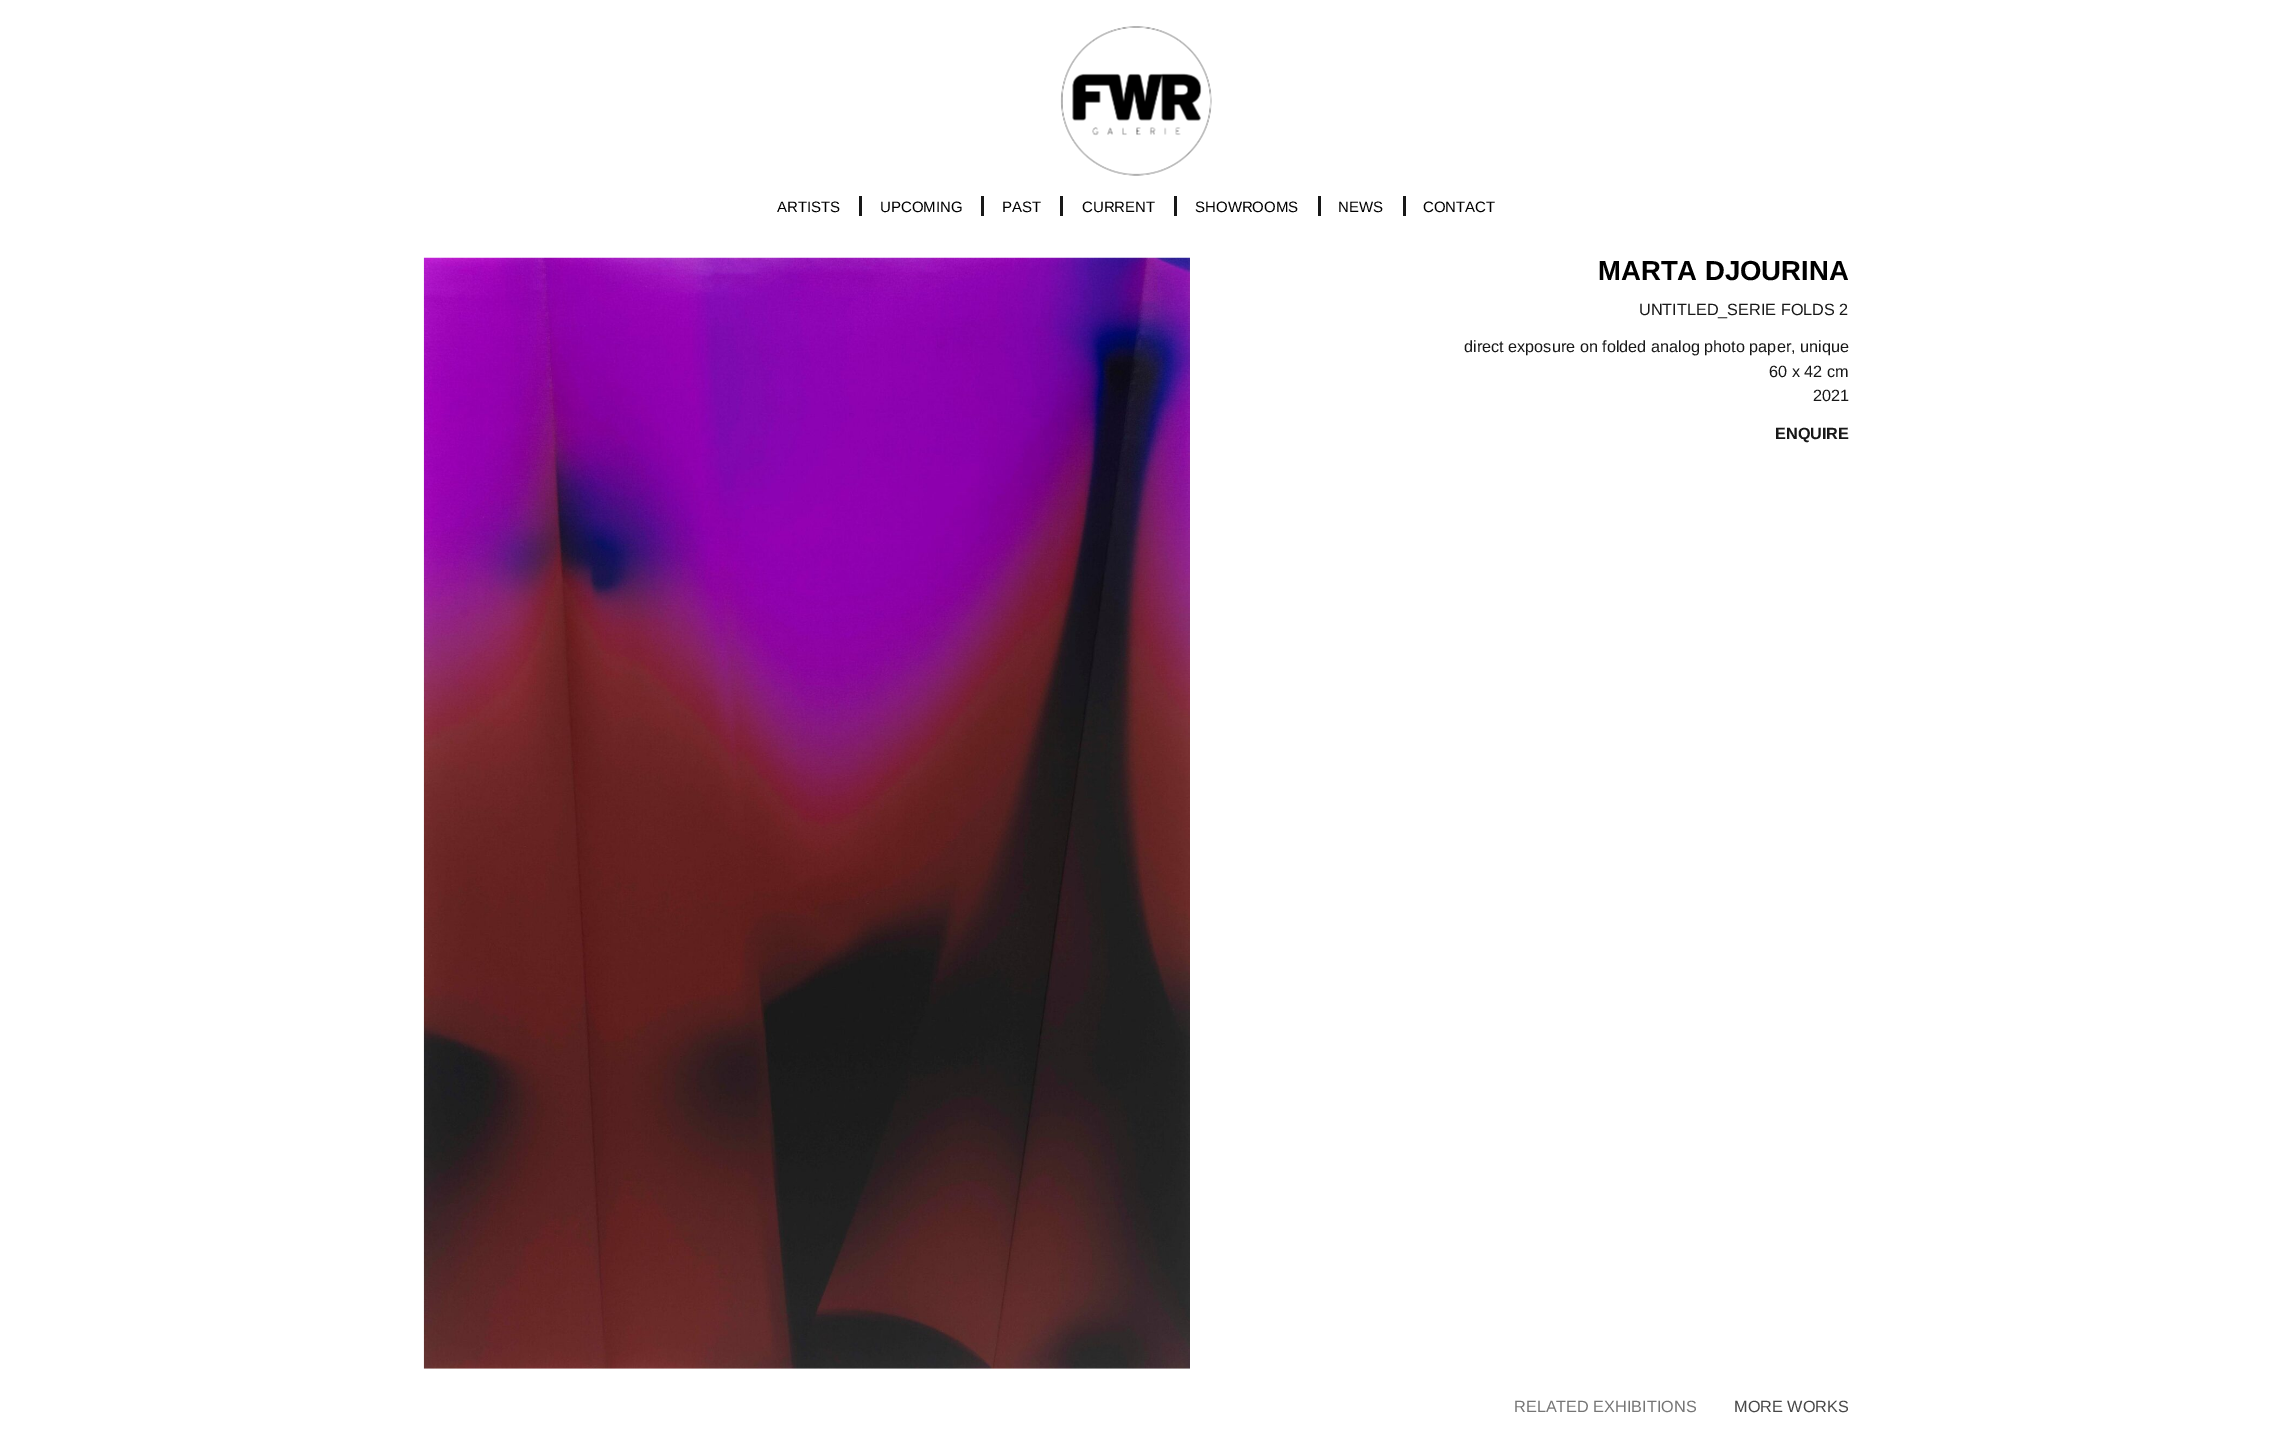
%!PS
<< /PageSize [2272 1431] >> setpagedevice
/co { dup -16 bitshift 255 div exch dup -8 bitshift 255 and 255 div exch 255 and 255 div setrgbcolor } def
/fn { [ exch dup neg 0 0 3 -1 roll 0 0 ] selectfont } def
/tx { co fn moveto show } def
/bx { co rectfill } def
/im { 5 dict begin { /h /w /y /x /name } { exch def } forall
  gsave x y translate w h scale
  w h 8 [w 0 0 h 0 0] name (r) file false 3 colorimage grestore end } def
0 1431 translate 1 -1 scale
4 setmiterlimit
0 0 2272 1431 16#FFFFFF bx
(media/1.raw) 1060 26 152 150 im
859 196 3 20 16#181818 bx
981 196 3 20 16#181818 bx
1060 196 3 20 16#181818 bx
1174 196 3 20 16#181818 bx
1318 196 3 20 16#181818 bx
1403 196 3 20 16#181818 bx
(media/2.raw) 423 257 767 1112 im
(ARTISTS) 777 212 /LiberationSans-Regular 15 16#000000 tx
(UPCOMING) 880 212 /LiberationSans-Regular 15 16#000000 tx
(PAST) 1002 212 /LiberationSans-Regular 15 16#000000 tx
(CURRENT) 1082 212 /LiberationSans-Regular 15 16#000000 tx
(SHOWROOMS) 1195 212 /LiberationSans-Regular 15 16#000000 tx
(NEWS) 1338 212 /LiberationSans-Regular 15 16#000000 tx
(CONTACT) 1423 212 /LiberationSans-Regular 15 16#000000 tx
(MARTA DJOURINA) 1598 280 /LiberationSans-Bold 27.5 16#000000 tx
(UNTITLED_SERIE FOLDS 2) 1639 315 /LiberationSans-Regular 16.25 16#181818 tx
(direct exposure on folded analog photo paper, unique) 1464 352 /LiberationSans-Regular 16.25 16#181818 tx
(60 x 42 cm) 1769 377 /LiberationSans-Regular 16.25 16#181818 tx
(2021) 1813 401 /LiberationSans-Regular 16.25 16#181818 tx
(ENQUIRE) 1775 439 /LiberationSans-Bold 16.25 16#181818 tx
(RELATED EXHIBITIONS) 1514 1412 /LiberationSans-Regular 16.25 16#757575 tx
(MORE WORKS) 1734 1412 /LiberationSans-Regular 16.25 16#474747 tx
showpage
